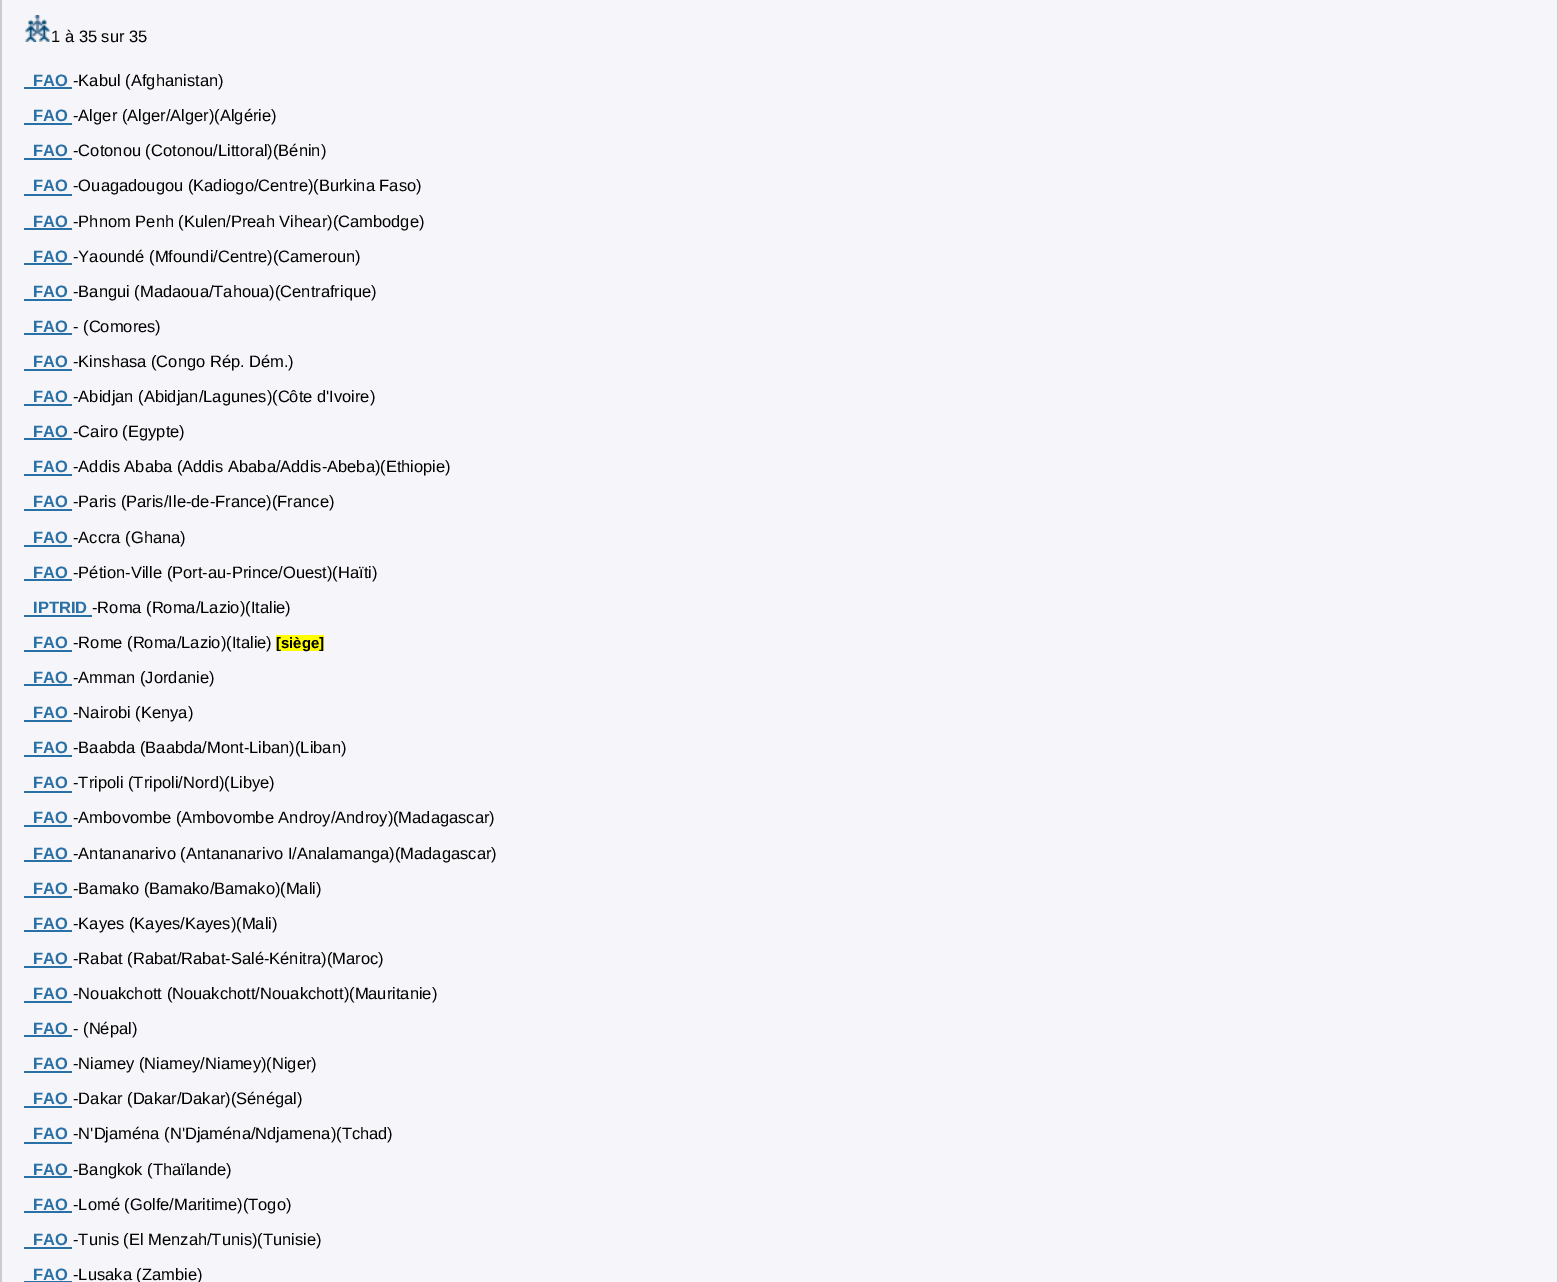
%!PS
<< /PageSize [1558 1282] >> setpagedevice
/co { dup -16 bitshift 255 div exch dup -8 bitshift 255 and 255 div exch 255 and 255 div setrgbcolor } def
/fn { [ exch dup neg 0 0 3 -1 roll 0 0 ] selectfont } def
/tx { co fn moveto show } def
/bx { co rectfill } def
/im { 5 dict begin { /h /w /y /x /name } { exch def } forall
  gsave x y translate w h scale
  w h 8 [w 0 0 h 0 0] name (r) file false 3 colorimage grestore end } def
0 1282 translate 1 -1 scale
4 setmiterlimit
0 0 1558 1282 16#F6F6FA bx
1557 0 1 1282 16#CCCCCC bx
0 0 2 1282 16#CCCCCC bx
(media/1.raw) 25 15 25 27 im
24 87 48 2 16#2970A6 bx
24 123 48 2 16#2970A6 bx
24 158 48 2 16#2970A6 bx
24 194 48 2 16#2970A6 bx
24 228 48 2 16#2970A6 bx
24 263 48 2 16#2970A6 bx
24 299 48 2 16#2970A6 bx
24 333 48 2 16#2970A6 bx
24 369 48 2 16#2970A6 bx
24 404 48 2 16#2970A6 bx
24 438 48 2 16#2970A6 bx
24 474 48 2 16#2970A6 bx
24 509 48 2 16#2970A6 bx
24 545 48 2 16#2970A6 bx
24 579 48 2 16#2970A6 bx
24 615 68 2 16#2970A6 bx
24 650 48 2 16#2970A6 bx
276 635 48 16 16#FFFF00 bx
24 684 48 2 16#2970A6 bx
24 720 48 2 16#2970A6 bx
24 755 48 2 16#2970A6 bx
24 791 48 2 16#2970A6 bx
24 825 48 2 16#2970A6 bx
24 860 48 2 16#2970A6 bx
24 896 48 2 16#2970A6 bx
24 930 48 2 16#2970A6 bx
24 966 48 2 16#2970A6 bx
24 1001 48 2 16#2970A6 bx
24 1035 48 2 16#2970A6 bx
24 1071 48 2 16#2970A6 bx
24 1106 48 2 16#2970A6 bx
24 1142 48 2 16#2970A6 bx
24 1176 48 2 16#2970A6 bx
24 1211 48 2 16#2970A6 bx
24 1247 48 2 16#2970A6 bx
24 1281 48 1 16#2970A6 bx
(1 à 35 sur 35) 51 42 /LiberationSans-Regular 16.5 16#000000 tx
(FAO) 33 86 /LiberationSans-Bold 16.5 16#2970A6 tx
(-Kabul \(Afghanistan\)) 73 86 /LiberationSans-Regular 16.5 16#000000 tx
(FAO) 33 121 /LiberationSans-Bold 16.5 16#2970A6 tx
(-Alger \(Alger/Alger\)\(Algérie\)) 73 121 /LiberationSans-Regular 16.5 16#000000 tx
(FAO) 33 156 /LiberationSans-Bold 16.5 16#2970A6 tx
(-Cotonou \(Cotonou/Littoral\)\(Bénin\)) 73 156 /LiberationSans-Regular 16.5 16#000000 tx
(FAO) 33 191 /LiberationSans-Bold 16.5 16#2970A6 tx
(-Ouagadougou \(Kadiogo/Centre\)\(Burkina Faso\)) 73 191 /LiberationSans-Regular 16.5 16#000000 tx
(FAO) 33 227 /LiberationSans-Bold 16.5 16#2970A6 tx
(-Phnom Penh \(Kulen/Preah Vihear\)\(Cambodge\)) 73 227 /LiberationSans-Regular 16.5 16#000000 tx
(FAO) 33 262 /LiberationSans-Bold 16.5 16#2970A6 tx
(-Yaoundé \(Mfoundi/Centre\)\(Cameroun\)) 73 262 /LiberationSans-Regular 16.5 16#000000 tx
(FAO) 33 297 /LiberationSans-Bold 16.5 16#2970A6 tx
(-Bangui \(Madaoua/Tahoua\)\(Centrafrique\)) 73 297 /LiberationSans-Regular 16.5 16#000000 tx
(FAO) 33 332 /LiberationSans-Bold 16.5 16#2970A6 tx
(- \(Comores\)) 73 332 /LiberationSans-Regular 16.5 16#000000 tx
(FAO) 33 367 /LiberationSans-Bold 16.5 16#2970A6 tx
(-Kinshasa \(Congo Rép. Dém.\)) 73 367 /LiberationSans-Regular 16.5 16#000000 tx
(FAO) 33 402 /LiberationSans-Bold 16.5 16#2970A6 tx
(-Abidjan \(Abidjan/Lagunes\)\(Côte d'Ivoire\)) 73 402 /LiberationSans-Regular 16.5 16#000000 tx
(FAO) 33 437 /LiberationSans-Bold 16.5 16#2970A6 tx
(-Cairo \(Egypte\)) 73 437 /LiberationSans-Regular 16.5 16#000000 tx
(FAO) 33 472 /LiberationSans-Bold 16.5 16#2970A6 tx
(-Addis Ababa \(Addis Ababa/Addis-Abeba\)\(Ethiopie\)) 73 472 /LiberationSans-Regular 16.5 16#000000 tx
(FAO) 33 507 /LiberationSans-Bold 16.5 16#2970A6 tx
(-Paris \(Paris/Ile-de-France\)\(France\)) 73 507 /LiberationSans-Regular 16.5 16#000000 tx
(FAO) 33 543 /LiberationSans-Bold 16.5 16#2970A6 tx
(-Accra \(Ghana\)) 73 543 /LiberationSans-Regular 16.5 16#000000 tx
(FAO) 33 578 /LiberationSans-Bold 16.5 16#2970A6 tx
(-Pétion-Ville \(Port-au-Prince/Ouest\)\(Haïti\)) 73 578 /LiberationSans-Regular 16.5 16#000000 tx
(IPTRID) 33 613 /LiberationSans-Bold 16.5 16#2970A6 tx
(-Roma \(Roma/Lazio\)\(Italie\)) 92 613 /LiberationSans-Regular 16.5 16#000000 tx
(FAO) 33 648 /LiberationSans-Bold 16.5 16#2970A6 tx
(-Rome \(Roma/Lazio\)\(Italie\)) 73 648 /LiberationSans-Regular 16.5 16#000000 tx
([siège]) 276 648 /LiberationSans-Bold 15 16#000000 tx
(FAO) 33 683 /LiberationSans-Bold 16.5 16#2970A6 tx
(-Amman \(Jordanie\)) 73 683 /LiberationSans-Regular 16.5 16#000000 tx
(FAO) 33 718 /LiberationSans-Bold 16.5 16#2970A6 tx
(-Nairobi \(Kenya\)) 73 718 /LiberationSans-Regular 16.5 16#000000 tx
(FAO) 33 753 /LiberationSans-Bold 16.5 16#2970A6 tx
(-Baabda \(Baabda/Mont-Liban\)\(Liban\)) 73 753 /LiberationSans-Regular 16.5 16#000000 tx
(FAO) 33 788 /LiberationSans-Bold 16.5 16#2970A6 tx
(-Tripoli \(Tripoli/Nord\)\(Libye\)) 73 788 /LiberationSans-Regular 16.5 16#000000 tx
(FAO) 33 823 /LiberationSans-Bold 16.5 16#2970A6 tx
(-Ambovombe \(Ambovombe Androy/Androy\)\(Madagascar\)) 73 823 /LiberationSans-Regular 16.5 16#000000 tx
(FAO) 33 859 /LiberationSans-Bold 16.5 16#2970A6 tx
(-Antananarivo \(Antananarivo I/Analamanga\)\(Madagascar\)) 73 859 /LiberationSans-Regular 16.5 16#000000 tx
(FAO) 33 894 /LiberationSans-Bold 16.5 16#2970A6 tx
(-Bamako \(Bamako/Bamako\)\(Mali\)) 73 894 /LiberationSans-Regular 16.5 16#000000 tx
(FAO) 33 929 /LiberationSans-Bold 16.5 16#2970A6 tx
(-Kayes \(Kayes/Kayes\)\(Mali\)) 73 929 /LiberationSans-Regular 16.5 16#000000 tx
(FAO) 33 964 /LiberationSans-Bold 16.5 16#2970A6 tx
(-Rabat \(Rabat/Rabat-Salé-Kénitra\)\(Maroc\)) 73 964 /LiberationSans-Regular 16.5 16#000000 tx
(FAO) 33 999 /LiberationSans-Bold 16.5 16#2970A6 tx
(-Nouakchott \(Nouakchott/Nouakchott\)\(Mauritanie\)) 73 999 /LiberationSans-Regular 16.5 16#000000 tx
(FAO) 33 1034 /LiberationSans-Bold 16.5 16#2970A6 tx
(- \(Népal\)) 73 1034 /LiberationSans-Regular 16.5 16#000000 tx
(FAO) 33 1069 /LiberationSans-Bold 16.5 16#2970A6 tx
(-Niamey \(Niamey/Niamey\)\(Niger\)) 73 1069 /LiberationSans-Regular 16.5 16#000000 tx
(FAO) 33 1104 /LiberationSans-Bold 16.5 16#2970A6 tx
(-Dakar \(Dakar/Dakar\)\(Sénégal\)) 73 1104 /LiberationSans-Regular 16.5 16#000000 tx
(FAO) 33 1139 /LiberationSans-Bold 16.5 16#2970A6 tx
(-N'Djaména \(N'Djaména/Ndjamena\)\(Tchad\)) 73 1139 /LiberationSans-Regular 16.5 16#000000 tx
(FAO) 33 1175 /LiberationSans-Bold 16.5 16#2970A6 tx
(-Bangkok \(Thaïlande\)) 73 1175 /LiberationSans-Regular 16.5 16#000000 tx
(FAO) 33 1210 /LiberationSans-Bold 16.5 16#2970A6 tx
(-Lomé \(Golfe/Maritime\)\(Togo\)) 73 1210 /LiberationSans-Regular 16.5 16#000000 tx
(FAO) 33 1245 /LiberationSans-Bold 16.5 16#2970A6 tx
(-Tunis \(El Menzah/Tunis\)\(Tunisie\)) 73 1245 /LiberationSans-Regular 16.5 16#000000 tx
(FAO) 33 1280 /LiberationSans-Bold 16.5 16#2970A6 tx
(-Lusaka \(Zambie\)) 73 1280 /LiberationSans-Regular 16.5 16#000000 tx
showpage
